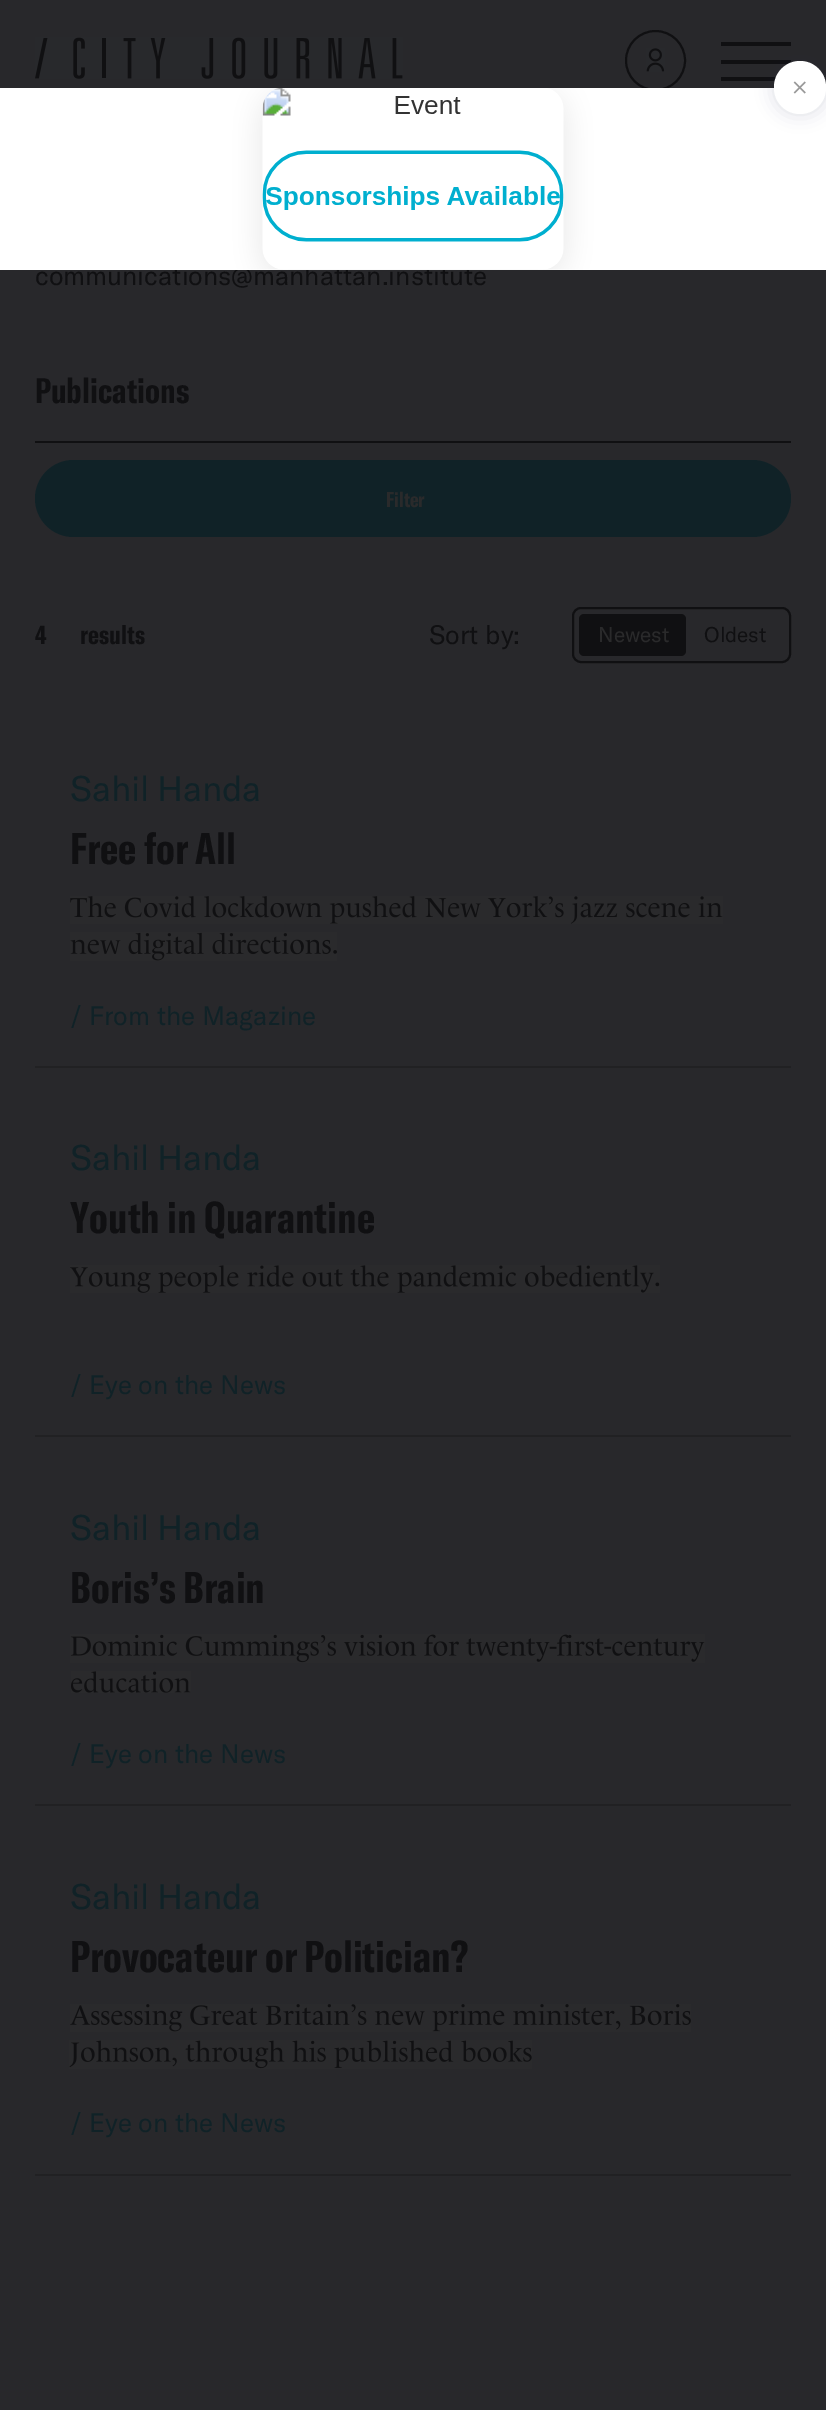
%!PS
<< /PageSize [826 2410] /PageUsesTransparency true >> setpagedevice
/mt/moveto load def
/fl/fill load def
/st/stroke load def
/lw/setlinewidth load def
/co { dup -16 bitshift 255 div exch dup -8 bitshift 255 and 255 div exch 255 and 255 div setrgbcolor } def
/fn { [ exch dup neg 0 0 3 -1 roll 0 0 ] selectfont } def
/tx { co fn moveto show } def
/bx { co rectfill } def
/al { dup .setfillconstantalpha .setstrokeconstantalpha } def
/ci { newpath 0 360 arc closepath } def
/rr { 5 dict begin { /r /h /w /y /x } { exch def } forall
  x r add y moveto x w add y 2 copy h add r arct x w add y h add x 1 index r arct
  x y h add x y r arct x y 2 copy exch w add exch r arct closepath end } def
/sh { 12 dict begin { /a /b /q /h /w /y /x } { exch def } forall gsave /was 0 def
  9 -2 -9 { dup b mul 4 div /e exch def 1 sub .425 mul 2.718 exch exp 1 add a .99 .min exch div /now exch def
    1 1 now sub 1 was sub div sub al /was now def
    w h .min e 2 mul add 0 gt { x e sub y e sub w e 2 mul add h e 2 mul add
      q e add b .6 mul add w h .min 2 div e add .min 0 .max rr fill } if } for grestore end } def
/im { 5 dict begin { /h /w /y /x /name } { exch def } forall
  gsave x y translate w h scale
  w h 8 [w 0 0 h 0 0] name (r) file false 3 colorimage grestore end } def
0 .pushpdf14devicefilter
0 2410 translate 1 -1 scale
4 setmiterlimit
0 0 826 2410 16#28282B bx
(media/1.raw) 35 37 368 42 im
16#101012 co
2 lw
655.5 60.5 29.5 ci st
(media/2.raw) 646 48 19 24 im
721 42 70 4 16#101012 bx
721 60 70 4 16#101012 bx
721 77 55 4 16#101012 bx
35 441 756 2 16#101012 bx
16#102227 co
35 460 756 77 38.5 rr fl
16#101012 co
573 608 217 54 8 rr st
579 614 107 42 5 rr fl
35 1066 756 2 16#212123 bx
(media/5.raw) 70 896 653 28 im
(media/6.raw) 70 932 267 29 im
35 1435 756 2 16#212123 bx
(media/7.raw) 70 1265 590 28 im
35 1804 756 2 16#212123 bx
(media/8.raw) 70 1634 635 29 im
(media/9.raw) 71 1671 120 22 im
35 2174 756 2 16#212123 bx
(media/10.raw) 70 2004 621 28 im
(media/11.raw) 69 2040 463 29 im
(communications@manhattan.institute) 35 285 /GTAmerica-Regular 26.25 16#101012 tx
(media/4.raw) 0 88 826 182 im
16#1C2544 co
774 61 52 53 26 9 .15 sh
16#FFFFFF co
774 61 52 53 26 rr fl
(media/3.raw) 793 81 13 13 im
(Publications) 35 403 /GTAmerica-Bold 35 16#101012 tx
(Filter) 386 507 /GTAmerica-Bold 21 16#2A2A2B tx
/GTAmerica-Bold 26.25 fn
16#101012 co
35 644 mt 29 0 32 (4 results) widthshow
(Sort by:) 429 644 /GTAmerica-Regular 26.25 16#101012 tx
(Newest) 598 642 /GTAmerica-Regular 21 16#2A2A2B tx
(Oldest) 704 642 /GTAmerica-Regular 21 16#101012 tx
/GTAmerica-Regular 35 fn
16#102227 co
70 801 mt -2 0 32 (Sahil Handa) widthshow
(Free for All) 70 864 /GTAmerica-Bold 43.75 16#101012 tx
(/ From the Magazine) 70 1025 /GTAmerica-Regular 26.25 16#102227 tx
/GTAmerica-Regular 35 fn
70 1170 mt -2 0 32 (Sahil Handa) widthshow
(Youth in Quarantine) 70 1233 /GTAmerica-Bold 43.75 16#101012 tx
(/ Eye on the News) 70 1394 /GTAmerica-Regular 26.25 16#102227 tx
/GTAmerica-Regular 35 fn
70 1540 mt -2 0 32 (Sahil Handa) widthshow
(Boris’s Brain) 70 1603 /GTAmerica-Bold 43.75 16#101012 tx
(/ Eye on the News) 70 1763 /GTAmerica-Regular 26.25 16#102227 tx
/GTAmerica-Regular 35 fn
70 1909 mt -2 0 32 (Sahil Handa) widthshow
(Provocateur or Politician?) 70 1972 /GTAmerica-Bold 43.75 16#101012 tx
(/ Eye on the News) 70 2132 /GTAmerica-Regular 26.25 16#102227 tx
.poppdf14devicefilter showpage
